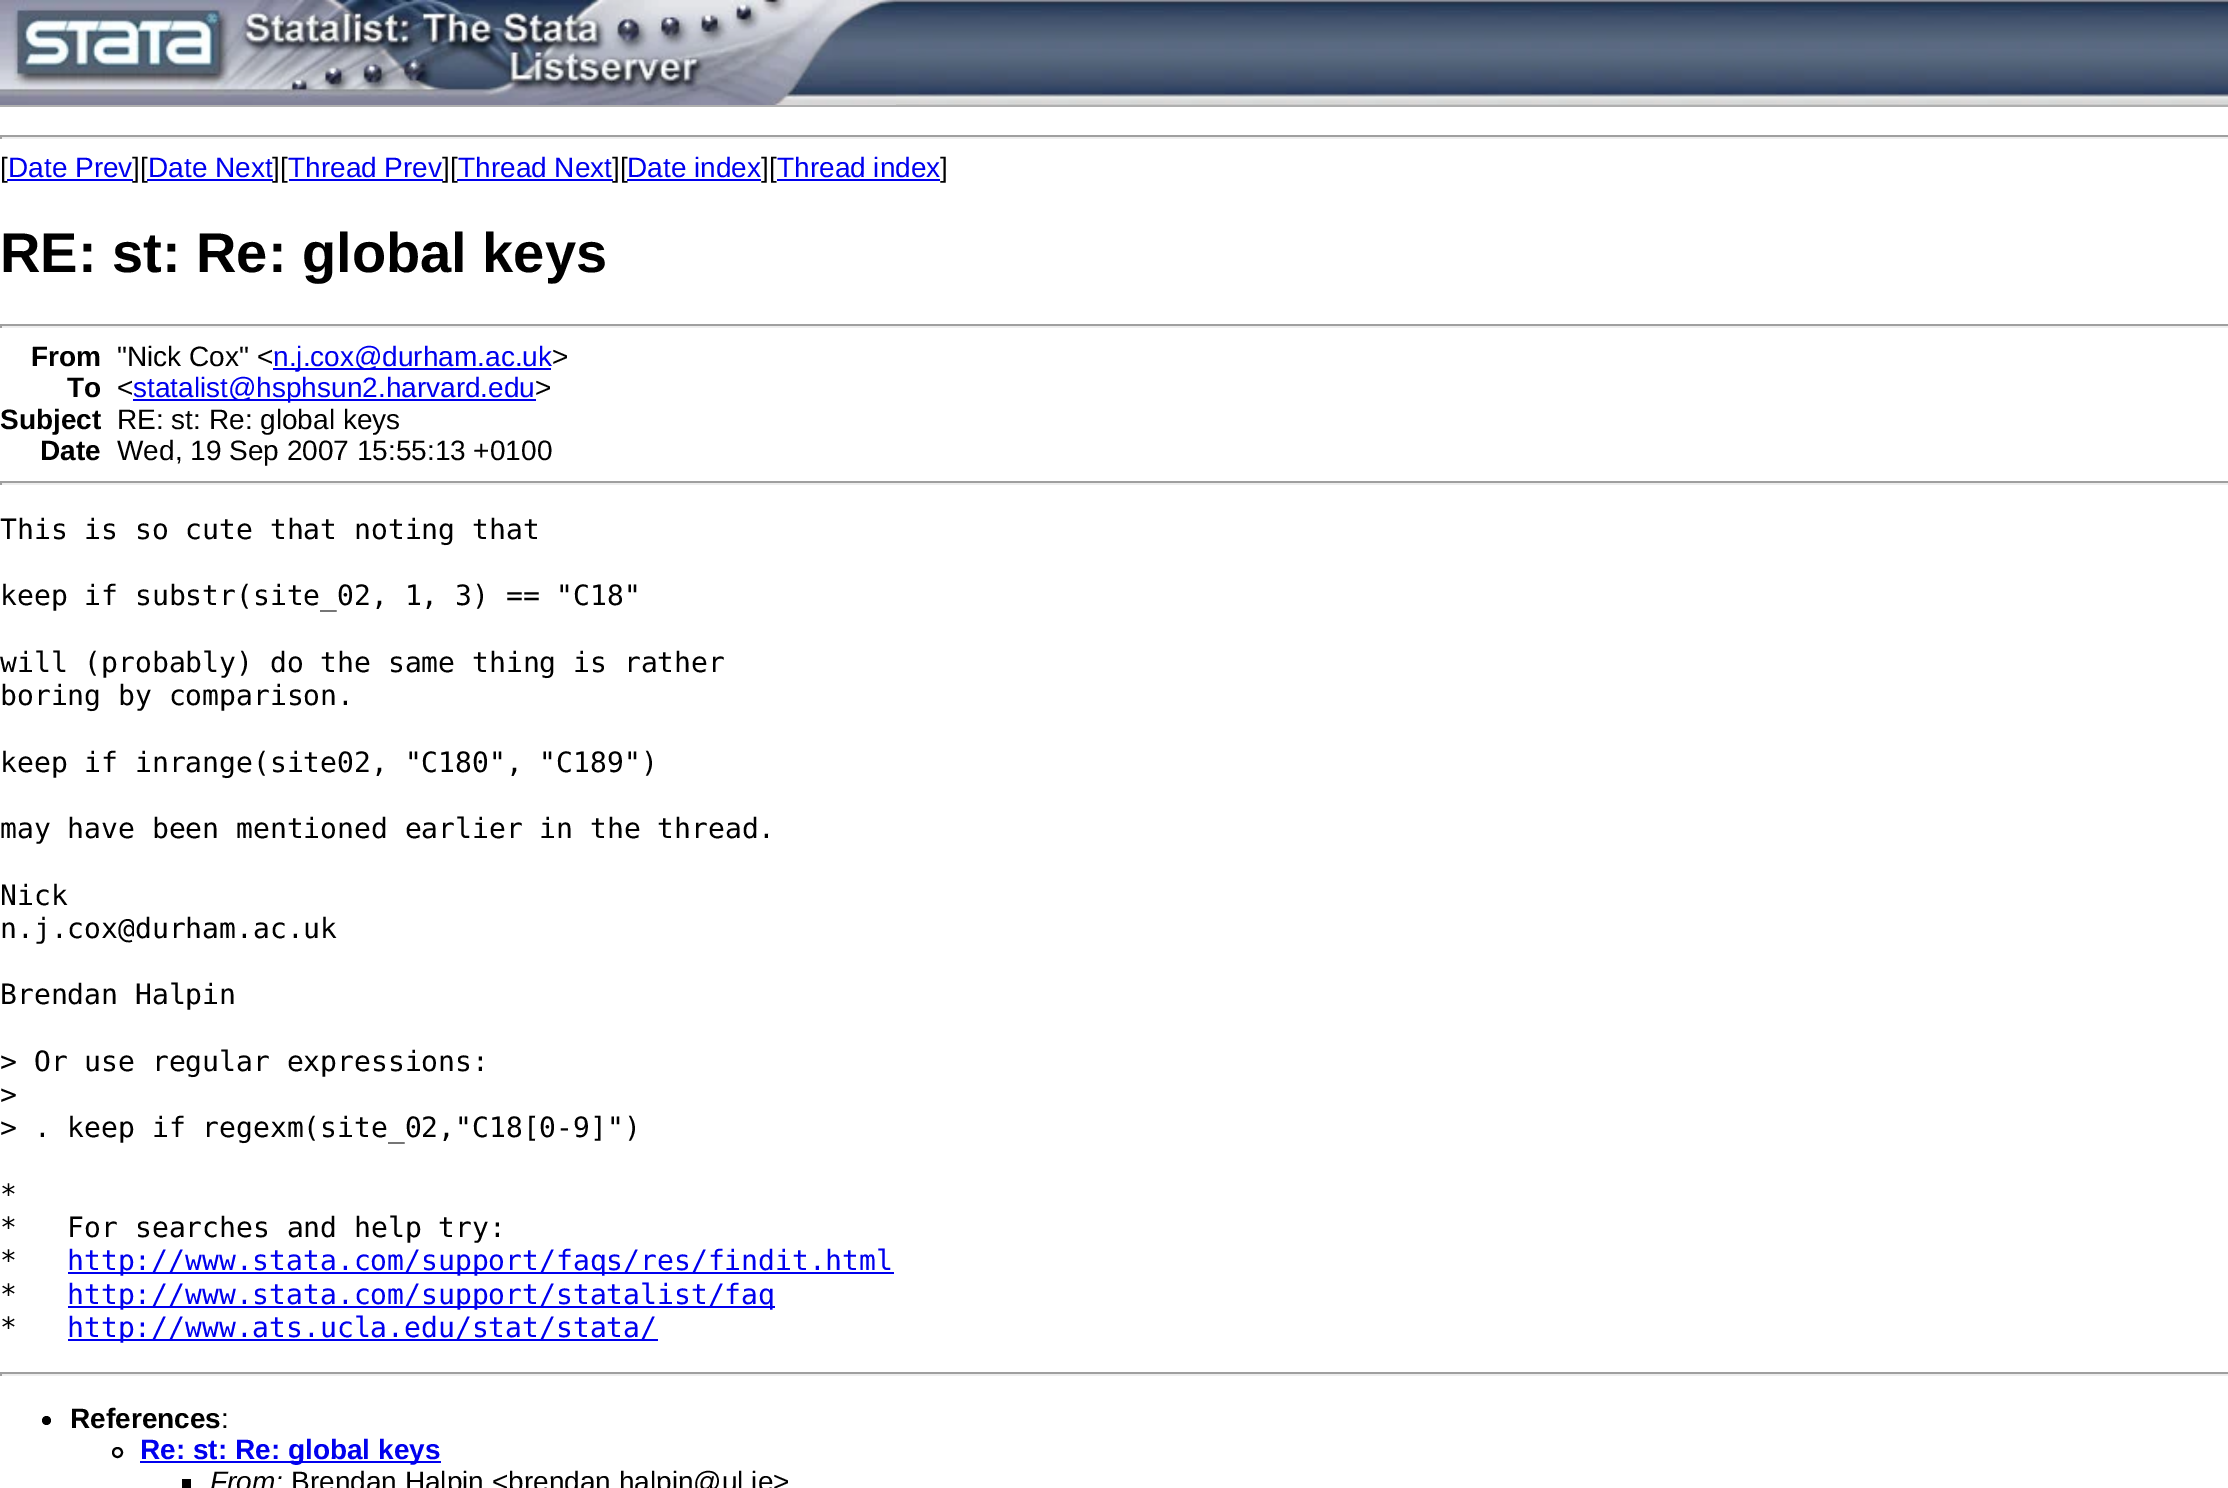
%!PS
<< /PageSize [2228 1488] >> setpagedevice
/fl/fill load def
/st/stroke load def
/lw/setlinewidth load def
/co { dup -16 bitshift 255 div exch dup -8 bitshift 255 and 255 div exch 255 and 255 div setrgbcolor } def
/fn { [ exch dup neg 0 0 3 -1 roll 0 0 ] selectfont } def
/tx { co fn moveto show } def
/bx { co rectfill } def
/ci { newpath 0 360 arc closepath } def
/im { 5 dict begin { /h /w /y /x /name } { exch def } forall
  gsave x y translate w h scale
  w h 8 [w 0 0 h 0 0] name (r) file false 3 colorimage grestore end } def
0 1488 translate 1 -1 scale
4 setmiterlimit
0 0 2228 1488 16#FFFFFF bx
(media/1.raw) 896 0 1332 105 im
0 105 2228 2 16#AFAFAF bx
(media/2.raw) 0 0 896 105 im
0 135 2228 2 16#9F9F9F bx
0 137 2228 2 16#EEEEEE bx
0 135 2 4 16#9F9F9F bx
289 179 154 2 16#0000EE bx
627 179 134 2 16#0000EE bx
777 179 163 2 16#0000EE bx
0 324 2228 2 16#9F9F9F bx
0 326 2228 2 16#EEEEEE bx
0 324 2 4 16#9F9F9F bx
273 368 278 2 16#0000EE bx
133 399 403 2 16#0000EE bx
0 481 2228 2 16#9F9F9F bx
0 483 2228 2 16#EEEEEE bx
0 481 2 4 16#9F9F9F bx
68 1272 826 2 16#0000EE bx
68 1306 707 2 16#0000EE bx
68 1339 590 2 16#0000EE bx
0 1372 2228 2 16#9F9F9F bx
0 1374 2228 2 16#EEEEEE bx
0 1372 2 4 16#9F9F9F bx
16#000000 co
46.5 1420.5 4.5 ci fl
2 lw
117.5 1452.5 4.5 ci st
140 1461 301 2 16#0000EE bx
182 1479 9 9 16#000000 bx
([) 0 177 /LiberationSans-Regular 28 16#000000 tx
(Date Prev) 8 177 /LiberationSans-Regular 28 16#0000EE tx
7 179 126 2 16#0000EE bx
(][) 132 177 /LiberationSans-Regular 28 16#000000 tx
(Date Next) 148 177 /LiberationSans-Regular 28 16#0000EE tx
147 179 126 2 16#0000EE bx
(][) 272 177 /LiberationSans-Regular 28 16#000000 tx
(Thread Prev) 288 177 /LiberationSans-Regular 28 16#0000EE tx
(][) 442 177 /LiberationSans-Regular 28 16#000000 tx
(Thread Next) 458 177 /LiberationSans-Regular 28 16#0000EE tx
457 179 156 2 16#0000EE bx
(][) 612 177 /LiberationSans-Regular 28 16#000000 tx
(Date index) 627 177 /LiberationSans-Regular 28 16#0000EE tx
(][) 761 177 /LiberationSans-Regular 28 16#000000 tx
(Thread index) 777 177 /LiberationSans-Regular 28 16#0000EE tx
(]) 940 177 /LiberationSans-Regular 28 16#000000 tx
(RE: st: Re: global keys) 0 272 /LiberationSans-Bold 56 16#000000 tx
(From) 31 366 /LiberationSans-Bold 28 16#000000 tx
("Nick Cox" <) 117 366 /LiberationSans-Regular 28 16#000000 tx
(n.j.cox@durham.ac.uk) 273 366 /LiberationSans-Regular 28 16#0000EE tx
(>) 552 366 /LiberationSans-Regular 28 16#000000 tx
(To) 67 397 /LiberationSans-Bold 28 16#000000 tx
(<) 117 397 /LiberationSans-Regular 28 16#000000 tx
(statalist@hsphsun2.harvard.edu) 133 397 /LiberationSans-Regular 28 16#0000EE tx
(>) 535 397 /LiberationSans-Regular 28 16#000000 tx
(Subject) 0 429 /LiberationSans-Bold 28 16#000000 tx
(RE: st: Re: global keys) 117 429 /LiberationSans-Regular 28 16#000000 tx
(Date) 40 460 /LiberationSans-Bold 28 16#000000 tx
(Wed, 19 Sep 2007 15:55:13 +0100) 117 460 /LiberationSans-Regular 28 16#000000 tx
(This is so cute that noting that) 0 539 /DejaVuSansMono-Regular 28 16#000000 tx
(keep if substr\(site_02, 1, 3\) == "C18") 0 605 /DejaVuSansMono-Regular 28 16#000000 tx
(will \(probably\) do the same thing is rather) 0 672 /DejaVuSansMono-Regular 28 16#000000 tx
(boring by comparison.) 0 705 /DejaVuSansMono-Regular 28 16#000000 tx
(keep if inrange\(site02, "C180", "C189"\)) 0 772 /DejaVuSansMono-Regular 28 16#000000 tx
(may have been mentioned earlier in the thread.) 0 838 /DejaVuSansMono-Regular 28 16#000000 tx
(Nick) 0 905 /DejaVuSansMono-Regular 28 16#000000 tx
(n.j.cox@durham.ac.uk) 0 938 /DejaVuSansMono-Regular 28 16#000000 tx
(Brendan Halpin) 0 1004 /DejaVuSansMono-Regular 28 16#000000 tx
(> Or use regular expressions:) 0 1071 /DejaVuSansMono-Regular 28 16#000000 tx
(>) 0 1104 /DejaVuSansMono-Regular 28 16#000000 tx
(> . keep if regexm\(site_02,"C18[0-9]"\)) 0 1137 /DejaVuSansMono-Regular 28 16#000000 tx
(*) 0 1204 /DejaVuSansMono-Regular 28 16#000000 tx
(*   For searches and help try:) 0 1237 /DejaVuSansMono-Regular 28 16#000000 tx
(*) 0 1270 /DejaVuSansMono-Regular 28 16#000000 tx
(http://www.stata.com/support/faqs/res/findit.html) 67 1270 /DejaVuSansMono-Regular 28 16#0000EE tx
(*) 0 1304 /DejaVuSansMono-Regular 28 16#000000 tx
(http://www.stata.com/support/statalist/faq) 67 1304 /DejaVuSansMono-Regular 28 16#0000EE tx
(*) 0 1337 /DejaVuSansMono-Regular 28 16#000000 tx
(http://www.ats.ucla.edu/stat/stata/) 67 1337 /DejaVuSansMono-Regular 28 16#0000EE tx
(References) 70 1428 /LiberationSans-Bold 28 16#000000 tx
(:) 221 1428 /LiberationSans-Regular 28 16#000000 tx
(Re: st: Re: global keys) 140 1459 /LiberationSans-Bold 28 16#0000EE tx
(From:) 210 1491 /LiberationSans-Italic 28 16#000000 tx
(Brendan Halpin <brendan.halpin@ul.ie>) 291 1491 /LiberationSans-Regular 28 16#000000 tx
showpage
